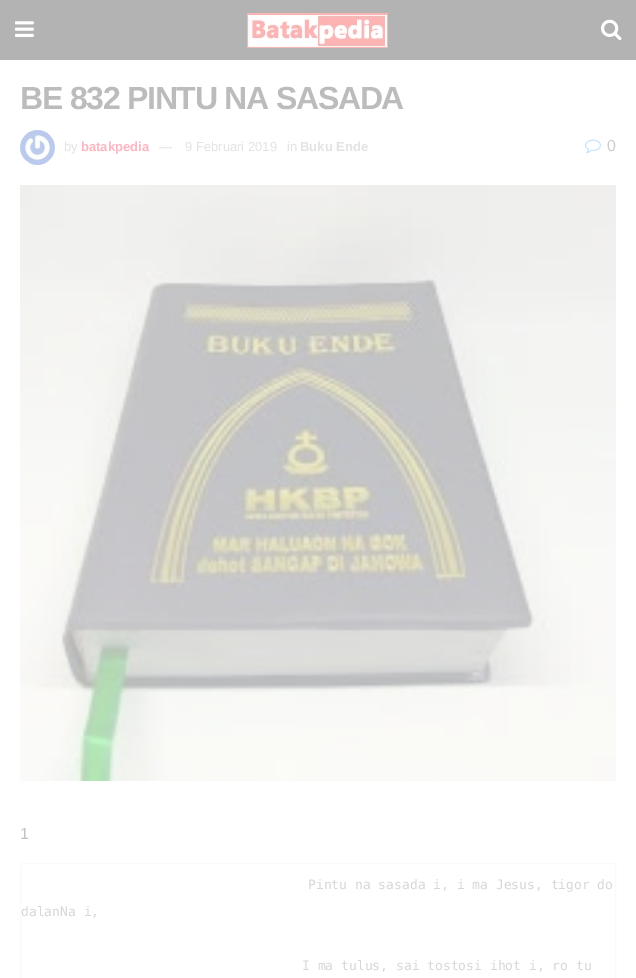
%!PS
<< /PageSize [636 978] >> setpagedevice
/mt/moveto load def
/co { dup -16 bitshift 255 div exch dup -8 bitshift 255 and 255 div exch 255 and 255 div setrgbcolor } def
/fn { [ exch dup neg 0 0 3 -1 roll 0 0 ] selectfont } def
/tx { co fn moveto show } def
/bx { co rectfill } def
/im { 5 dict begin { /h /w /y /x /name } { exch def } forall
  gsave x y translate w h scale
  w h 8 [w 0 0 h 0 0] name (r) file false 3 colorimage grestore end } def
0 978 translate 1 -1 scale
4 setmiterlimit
0 0 636 978 16#FFFFFF bx
0 0 636 60 16#B3B3B3 bx
(media/1.raw) 15 21 19 16 im
(media/2.raw) 247 13 141 35 im
(media/3.raw) 601 19 21 22 im
(media/4.raw) 20 130 35 35 im
(media/5.raw) 585 139 16 15 im
(media/6.raw) 20 185 596 596 im
16#FAFAFA co
20.5 863.5 595 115 rectstroke
/LiberationSans-Bold 32 fn
16#BCBCBC co
20 109 mt -1.25 0 (BE 832 PINTU NA SASADA) ashow
(by) 64 151 /LiberationSans-Regular 13 16#E3E3E3 tx
(batakpedia) 81 151 /LiberationSans-Bold 13 16#FDB6BF tx
(—) 159 151 /LiberationSans-Regular 13 16#E3E3E3 tx
(9 Februari 2019) 185 151 /LiberationSans-Regular 13 16#E3E3E3 tx
(in) 287 151 /LiberationSans-Regular 13 16#E3E3E3 tx
(Buku Ende) 300 151 /LiberationSans-Bold 13 16#E3E3E3 tx
(0) 607 151 /LiberationSans-Regular 16 16#CBCDCE tx
(1) 20 839 /LiberationSans-Regular 16 16#C2C2C2 tx
(Pintu na sasada i, i ma Jesus, tigor do) 308 889 /DejaVuSansMono-Regular 13 16#D7D7D7 tx
(dalanNa i,) 21 916 /DejaVuSansMono-Regular 13 16#D7D7D7 tx
(I ma tulus, sai tostosi ihot i, ro tu) 302 970 /DejaVuSansMono-Regular 13 16#D7D7D7 tx
showpage
